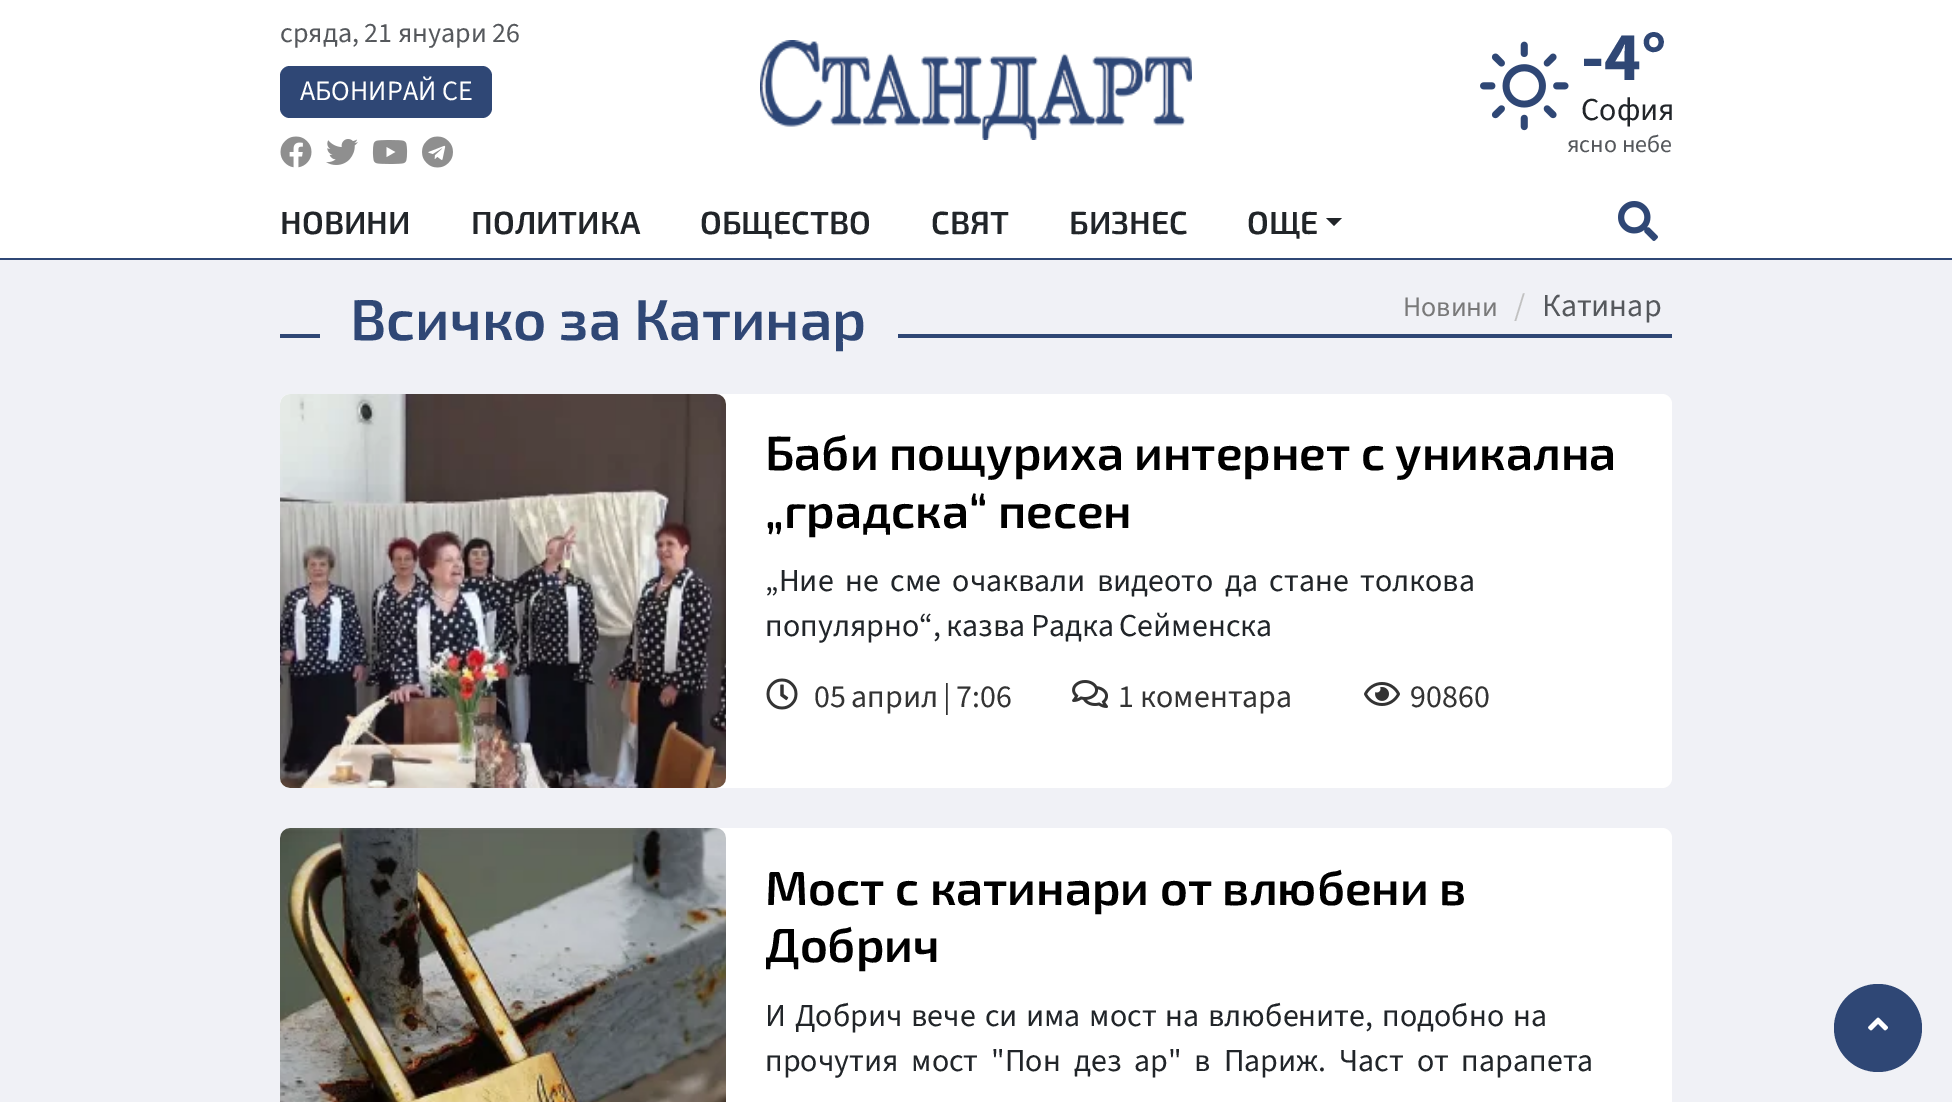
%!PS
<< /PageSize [1952 1102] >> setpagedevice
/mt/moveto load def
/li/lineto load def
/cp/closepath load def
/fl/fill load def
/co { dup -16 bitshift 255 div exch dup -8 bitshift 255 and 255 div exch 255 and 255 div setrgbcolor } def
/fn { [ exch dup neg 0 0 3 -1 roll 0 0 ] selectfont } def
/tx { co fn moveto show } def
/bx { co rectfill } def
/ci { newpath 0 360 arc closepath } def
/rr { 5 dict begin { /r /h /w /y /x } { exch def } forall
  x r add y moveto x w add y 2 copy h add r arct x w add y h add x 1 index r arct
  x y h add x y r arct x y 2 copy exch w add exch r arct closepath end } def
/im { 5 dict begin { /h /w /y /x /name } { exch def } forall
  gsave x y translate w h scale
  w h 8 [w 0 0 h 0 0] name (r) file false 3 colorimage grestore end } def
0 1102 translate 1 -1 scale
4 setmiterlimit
0 0 1952 1102 16#F0F1F6 bx
0 0 1952 258 16#FFFFFF bx
0 258 1952 2 16#2F4775 bx
280 66 212 52 10 rr fl
(media/1.raw) 280 136 32 32 im
(media/2.raw) 326 139 32 26 im
(media/3.raw) 372 140 36 24 im
(media/4.raw) 422 136 31 32 im
(media/5.raw) 760 40 432 100 im
(media/6.raw) 1480 41 89 90 im
16#212529 co
1326 218 mt 1342 218 li 1334 226 li cp fl
(media/7.raw) 1618 201 40 40 im
280 334 1392 4 16#2F4775 bx
320 334 578 4 16#F0F1F6 bx
16#FFFFFF co
280 394 1392 394 10 rr fl
(media/8.raw) 280 394 446 394 im
(media/9.raw) 766 678 32 32 im
(media/10.raw) 1072 680 36 28 im
(media/11.raw) 1364 682 36 24 im
280 828 1392 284 10 rr fl
(media/12.raw) 280 828 446 274 im
16#2F4775 co
1878 1028 44 ci fl
(media/13.raw) 1868 1017 20 14 im
(сряда, 21 януари 26) 280 42 /SourceSans3-ExtraLight 28 16#55585C tx
(АБОНИРАЙ СЕ) 300 100 /SourceSans3-ExtraLight 28 16#FFFFFF tx
(-4°) 1581 80 /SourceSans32-ExtraLight 70 16#2F4775 tx
(София) 1581 120 /SourceSans3-ExtraLight 32 16#212529 tx
(ясно небе) 1567 152 /SourceSans3-ExtraLight 24 16#55585C tx
(НОВИНИ) 280 234 /Exo2-SemiBold 32 16#212529 tx
(ПОЛИТИКА) 471 234 /Exo2-SemiBold 32 16#212529 tx
(ОБЩЕСТВО) 700 234 /Exo2-SemiBold 32 16#212529 tx
(СВЯТ) 931 234 /Exo2-SemiBold 32 16#212529 tx
(БИЗНЕС) 1069 234 /Exo2-SemiBold 32 16#212529 tx
(ОЩЕ) 1247 234 /Exo2-SemiBold 32 16#212529 tx
(Всичко за Катинар) 350 340 /Exo2-SemiBold 57.5 16#2F4775 tx
(Новини) 1403 316 /SourceSans3-ExtraLight 28 16#797979 tx
(/) 1514 316 /SourceSans3-ExtraLight 32 16#C1C1C1 tx
(Катинар) 1542 316 /SourceSans3-ExtraLight 32 16#55585C tx
(Баби пощуриха интернет с уникална) 765 470 /Exo2-SemiBold 48 16#000000 tx
(„градска“ песен) 765 528 /Exo2-SemiBold 48 16#000000 tx
/SourceSans3-ExtraLight 32 fn
16#212529 co
765 591 mt 5 0 32 („Ние не сме очаквали видеото да стане толкова) widthshow
765 636 mt -1 0 32 (популярно“, казва Радка Сейменска) widthshow
16#333333 co
814 707 mt -1 0 32 (05 април | 7:06) widthshow
(1 коментара) 1118 707 /SourceSans3-ExtraLight 32 16#333333 tx
(90860) 1410 707 /SourceSans3-ExtraLight 32 16#333333 tx
(Мост с катинари от влюбени в) 765 905 /Exo2-SemiBold 48 16#000000 tx
(Добрич) 765 962 /Exo2-SemiBold 48 16#000000 tx
/SourceSans3-ExtraLight 32 fn
16#212529 co
765 1026 mt 2.5 0 32 (И Добрич вече си има мост на влюбените, подобно на) widthshow
765 1071 mt 6.5 0 32 (прочутия мост "Пон дез ар" в Париж. Част от парапета) widthshow
showpage
